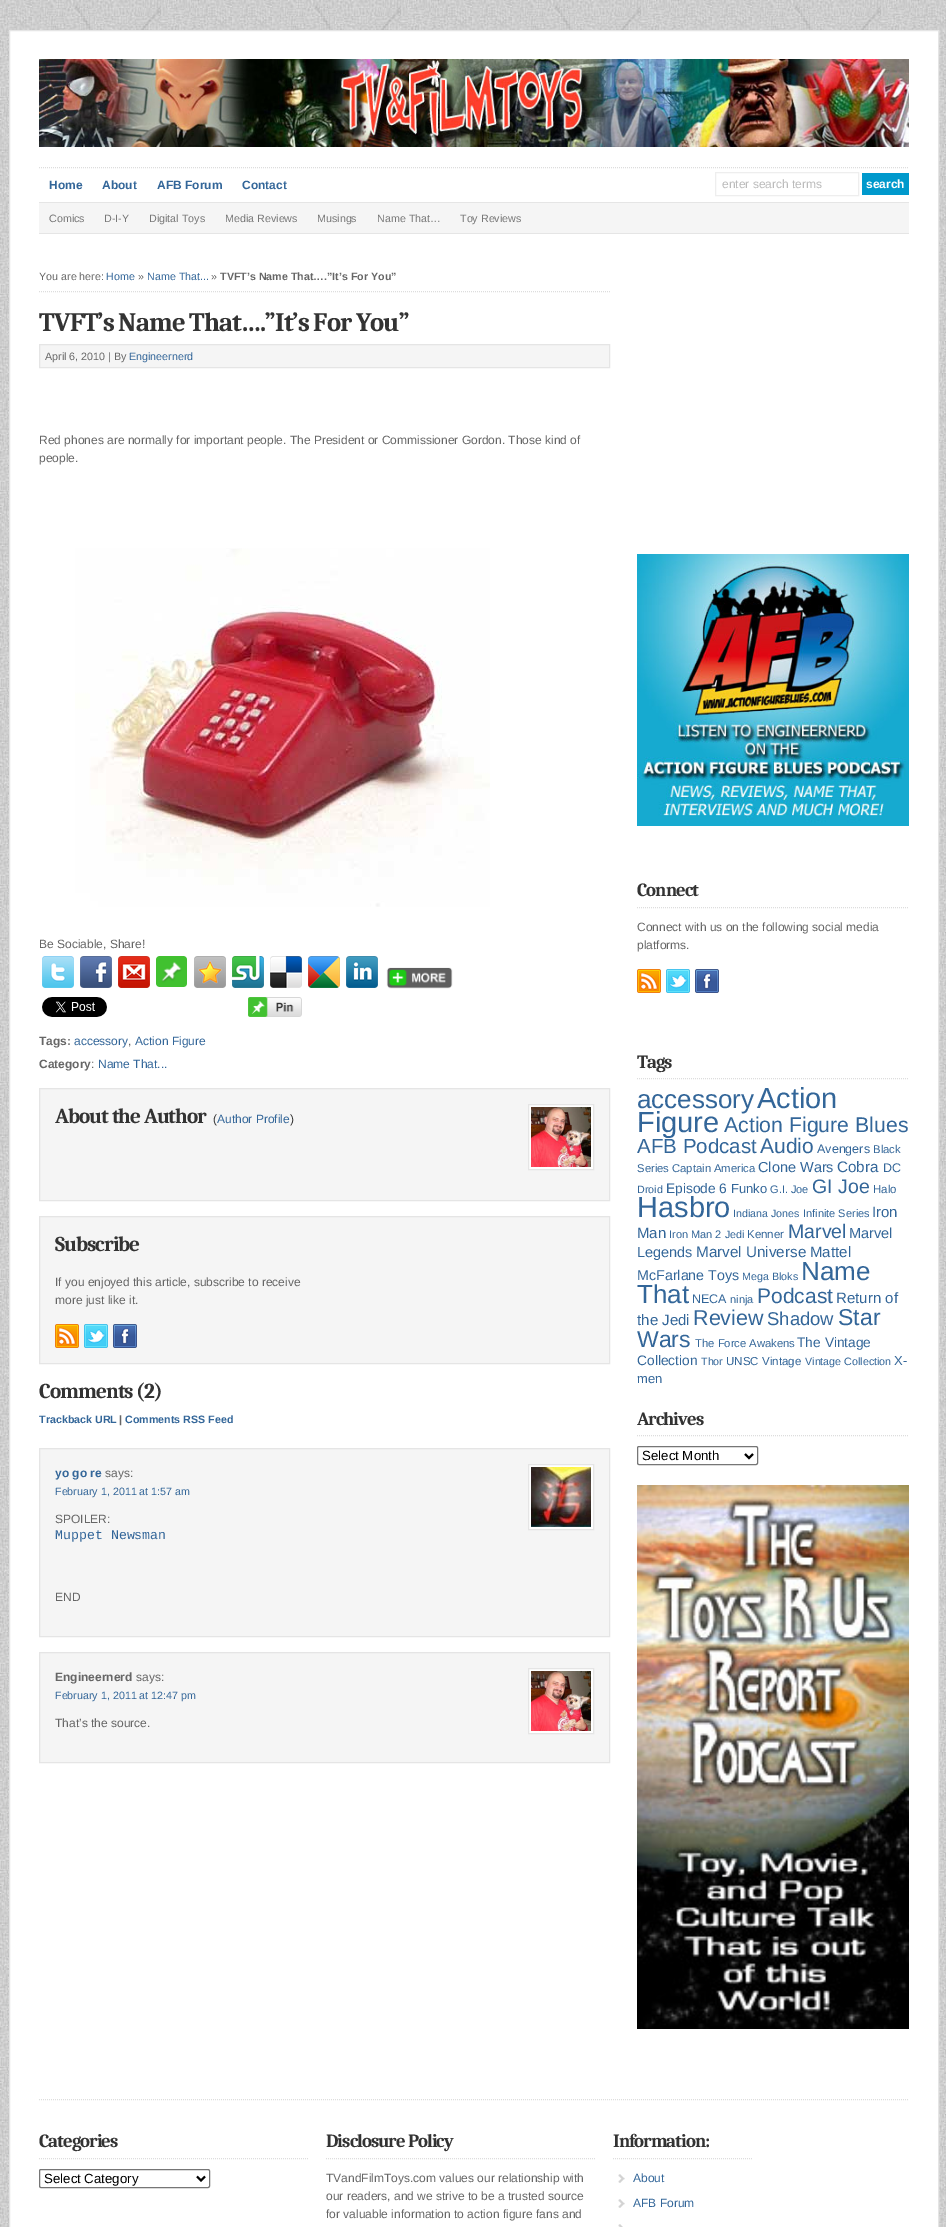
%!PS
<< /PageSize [946 2227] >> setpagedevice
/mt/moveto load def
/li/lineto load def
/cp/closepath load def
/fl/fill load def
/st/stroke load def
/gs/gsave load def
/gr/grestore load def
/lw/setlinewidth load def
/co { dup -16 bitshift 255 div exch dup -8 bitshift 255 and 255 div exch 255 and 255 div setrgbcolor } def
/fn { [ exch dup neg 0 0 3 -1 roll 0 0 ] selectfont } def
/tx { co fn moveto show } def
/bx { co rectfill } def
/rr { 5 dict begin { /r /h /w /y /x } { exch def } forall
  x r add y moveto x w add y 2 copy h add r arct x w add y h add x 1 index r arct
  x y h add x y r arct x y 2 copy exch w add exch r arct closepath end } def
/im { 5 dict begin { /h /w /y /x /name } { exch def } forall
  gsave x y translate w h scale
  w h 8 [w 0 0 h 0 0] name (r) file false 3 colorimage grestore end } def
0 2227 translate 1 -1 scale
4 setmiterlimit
0 0 946 2227 16#FFFFFF bx
(media/1.raw) 0 0 946 2227 im
9.5 30.5 mt 938.5 30.5 li 938.5 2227.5 li 9.5 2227.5 li cp gs fl gr
16#E5E5E5 co
st
(media/2.raw) 39 59 870 88 im
16#DDDDDD co
[1 1] 0 setdash
39 167.5 mt 909 167.5 li st
39 202 870 1 16#E5E5E5 bx
16#EEEEEE co
[] 0 setdash
715.5 172.5 143 23 rectstroke
862 173 47 22 16#0099CC bx
39 203 870 30 16#F5F5F5 bx
39 233 870 1 16#E5E5E5 bx
16#DDDDDD co
[1 1] 0 setdash
39 291.5 mt 610 291.5 li st
16#F5F5F5 co
39.5 344.5 mt 609.5 344.5 li 609.5 367.5 li 39.5 367.5 li cp gs fl gr
16#E5E5E5 co
[] 0 setdash
st
(media/3.raw) 75 548 415 359 im
(media/4.raw) 42 956 32 32 im
(media/5.raw) 80 956 32 32 im
(media/6.raw) 118 956 32 32 im
(media/7.raw) 156 956 31 31 im
(media/8.raw) 194 956 32 32 im
(media/9.raw) 232 956 32 32 im
(media/10.raw) 270 956 32 32 im
(media/11.raw) 308 956 32 32 im
(media/12.raw) 346 956 32 32 im
(media/13.raw) 386 967 67 22 im
(media/14.raw) 42 997 65 20 im
(media/15.raw) 248 997 54 20 im
16#F5F5F5 co
39.5 1088.5 mt 609.5 1088.5 li 609.5 1200.5 li 39.5 1200.5 li cp gs fl gr
16#E5E5E5 co
st
16#FFFFFF co
528.5 1104.5 mt 593.5 1104.5 li 593.5 1169.5 li 528.5 1169.5 li cp gs fl gr
16#E5E5E5 co
st
(media/16.raw) 531 1107 60 60 im
16#F5F5F5 co
39.5 1216.5 mt 609.5 1216.5 li 609.5 1363.5 li 39.5 1363.5 li cp gs fl gr
16#E5E5E5 co
st
(media/17.raw) 55 1324 24 24 im
(media/18.raw) 84 1324 24 24 im
(media/19.raw) 113 1324 24 24 im
16#F5F5F5 co
39.5 1448.5 mt 609.5 1448.5 li 609.5 1636.5 li 39.5 1636.5 li cp gs fl gr
16#E5E5E5 co
st
16#FFFFFF co
528.5 1464.5 mt 593.5 1464.5 li 593.5 1529.5 li 528.5 1529.5 li cp gs fl gr
16#E5E5E5 co
st
(media/20.raw) 531 1467 60 60 im
16#F5F5F5 co
39.5 1652.5 mt 609.5 1652.5 li 609.5 1762.5 li 39.5 1762.5 li cp gs fl gr
16#E5E5E5 co
st
16#FFFFFF co
528.5 1668.5 mt 593.5 1668.5 li 593.5 1733.5 li 528.5 1733.5 li cp gs fl gr
16#E5E5E5 co
st
(media/16.raw) 531 1671 60 60 im
(media/21.raw) 637 554 272 272 im
16#DDDDDD co
[1 1] 0 setdash
637 907.5 mt 909 907.5 li st
(media/22.raw) 637 969 24 24 im
(media/23.raw) 666 969 24 24 im
(media/24.raw) 695 969 24 24 im
637 1078.5 mt 909 1078.5 li st
637 1435.5 mt 909 1435.5 li st
16#767676 co
[] 0 setdash
637.5 1446.5 120 18 1.5 rr st
16#000000 co
2 lw
745 1454 mt 749 1458 li 753 1454 li st
(media/25.raw) 637 1485 272 544 im
16#DDDDDD co
1 lw
[1 1] 0 setdash
39 2099.5 mt 909 2099.5 li st
39 2158.5 mt 309 2158.5 li st
16#767676 co
[] 0 setdash
39.5 2169.5 170 18 1.5 rr st
16#000000 co
2 lw
197 2176.5 mt 201 2180.5 li 205 2176.5 li st
16#DDDDDD co
1 lw
[1 1] 0 setdash
326 2158.5 mt 596 2158.5 li st
613 2158.5 mt 752 2158.5 li st
(media/26.raw) 618 2174 7 9 im
(media/26.raw) 618 2199 7 9 im
(media/27.raw) 618 2224 5 3 im
(Home) 49 189 /LiberationSans-Bold 12 16#336699 tx
(About) 102 189 /LiberationSans-Bold 12 16#336699 tx
(AFB Forum) 157 189 /LiberationSans-Bold 12 16#336699 tx
(Contact) 242 189 /LiberationSans-Bold 12 16#336699 tx
(enter search terms) 722 188 /LiberationSans-Regular 12 16#BBBBBB tx
(search) 866 188 /LiberationSans-Bold 12 16#FFFFFF tx
(Comics) 49 222 /LiberationSans-Regular 10.7 16#777777 tx
(D-I-Y) 104 222 /LiberationSans-Regular 10.7 16#777777 tx
(Digital Toys) 149 222 /LiberationSans-Regular 10.7 16#777777 tx
(Media Reviews) 225 222 /LiberationSans-Regular 10.7 16#777777 tx
(Musings) 317 222 /LiberationSans-Regular 10.7 16#777777 tx
(Name That…) 377 222 /LiberationSans-Regular 10.7 16#777777 tx
(Toy Reviews) 460 222 /LiberationSans-Regular 10.7 16#777777 tx
(You are here:) 39 280 /LiberationSans-Regular 10.7 16#666666 tx
(Home) 106 280 /LiberationSans-Regular 10.7 16#336699 tx
(») 138 280 /LiberationSans-Regular 10.7 16#666666 tx
(Name That...) 147 280 /LiberationSans-Regular 10.7 16#336699 tx
(») 211 280 /LiberationSans-Regular 10.7 16#666666 tx
(TVFT’s Name That….”It’s For You”) 220 280 /LiberationSans-Bold 10.7 16#666666 tx
/Caladea-Bold 26.7 fn
16#333333 co
39 331 mt -1 0 (TVFT’s Name That….”It’s For You”) ashow
(April 6, 2010 | By) 45 360 /LiberationSans-Regular 10.7 16#666666 tx
(Engineernerd) 129 360 /LiberationSans-Regular 10.7 16#336699 tx
(Red phones are normally for important people. The President or Commissioner Gordon. Those kind of) 39 444 /LiberationSans-Regular 12 16#666666 tx
(people.) 39 462 /LiberationSans-Regular 12 16#666666 tx
(Be Sociable, Share!) 39 948 /LiberationSans-Regular 12 16#666666 tx
(Tags:) 39 1045 /LiberationSans-Bold 12 16#666666 tx
(accessory) 74 1045 /LiberationSans-Regular 12 16#336699 tx
(,) 128 1045 /LiberationSans-Regular 12 16#666666 tx
(Action Figure) 135 1045 /LiberationSans-Regular 12 16#336699 tx
(Category) 39 1068 /LiberationSans-Bold 12 16#666666 tx
(:) 91 1068 /LiberationSans-Regular 12 16#666666 tx
(Name That...) 98 1068 /LiberationSans-Regular 12 16#336699 tx
/Caladea-Bold 21.25 fn
16#333333 co
55 1123 mt -1 0 (About the Author) ashow
(\() 213 1123 /LiberationSans-Regular 12 16#333333 tx
(Author Profile) 217 1123 /LiberationSans-Regular 12 16#336699 tx
(\)) 290 1123 /LiberationSans-Regular 12 16#333333 tx
/Caladea-Bold 21.25 fn
55 1251 mt -1 0 (Subscribe) ashow
(If you enjoyed this article, subscribe to receive) 55 1286 /LiberationSans-Regular 12 16#666666 tx
(more just like it.) 55 1304 /LiberationSans-Regular 12 16#666666 tx
/Caladea-Bold 21.25 fn
16#333333 co
39 1398 mt -1 0 (Comments \(2\)) ashow
(Trackback URL) 39 1423 /LiberationSans-Bold 10.7 16#336699 tx
(|) 119 1423 /LiberationSans-Bold 10.7 16#666666 tx
(Comments RSS Feed) 125 1423 /LiberationSans-Bold 10.7 16#336699 tx
(yo go re) 55 1477 /LiberationSans-Bold 12 16#336699 tx
(says:) 105 1477 /LiberationSans-Regular 12 16#666666 tx
(February 1, 2011 at 1:57 am) 55 1495 /LiberationSans-Regular 10.7 16#336699 tx
(SPOILER:) 55 1523 /LiberationSans-Regular 12 16#666666 tx
(Muppet Newsman) 55 1539 /LiberationMono-Regular 13.25 16#336699 tx
(END) 55 1601 /LiberationSans-Regular 12 16#666666 tx
(Engineernerd) 55 1681 /LiberationSans-Bold 12 16#666666 tx
(says:) 136 1681 /LiberationSans-Regular 12 16#666666 tx
(February 1, 2011 at 12:47 pm) 55 1699 /LiberationSans-Regular 10.7 16#336699 tx
(That’s the source.) 55 1727 /LiberationSans-Regular 12 16#666666 tx
/Caladea-Bold 18.75 fn
16#333333 co
637 896 mt -1 0 (Connect) ashow
(Connect with us on the following social media) 637 931 /LiberationSans-Regular 12 16#666666 tx
(platforms.) 637 949 /LiberationSans-Regular 12 16#666666 tx
/Caladea-Bold 18.75 fn
16#333333 co
637 1068 mt -1 0 (Tags) ashow
(accessory) 637 1108 /LiberationSans-Regular 26 16#336699 tx
(Action) 757 1108 /LiberationSans-Regular 29 16#336699 tx
(Figure) 637 1132 /LiberationSans-Regular 29 16#336699 tx
(Action Figure Blues) 724 1132 /LiberationSans-Regular 21.25 16#336699 tx
(AFB Podcast) 637 1153 /LiberationSans-Regular 20.5 16#336699 tx
(Audio) 760 1153 /LiberationSans-Regular 21 16#336699 tx
(Avengers) 817 1153 /LiberationSans-Regular 12.5 16#336699 tx
(Black) 873 1153 /LiberationSans-Regular 11.25 16#336699 tx
(Series Captain America) 637 1172 /LiberationSans-Regular 11.25 16#336699 tx
(Clone Wars) 758 1172 /LiberationSans-Regular 14.5 16#336699 tx
(Cobra) 837 1172 /LiberationSans-Regular 15.25 16#336699 tx
(DC) 883 1172 /LiberationSans-Regular 12.5 16#336699 tx
(Droid) 637 1193 /LiberationSans-Regular 10.7 16#336699 tx
(Episode 6) 666 1193 /LiberationSans-Regular 13.75 16#336699 tx
(Funko) 731 1193 /LiberationSans-Regular 13 16#336699 tx
(G.I. Joe) 770 1193 /LiberationSans-Regular 11 16#336699 tx
(GI Joe) 812 1193 /LiberationSans-Regular 19.5 16#336699 tx
(Halo) 873 1193 /LiberationSans-Regular 11.5 16#336699 tx
(Hasbro) 637 1217 /LiberationSans-Regular 29 16#336699 tx
(Indiana Jones) 733 1217 /LiberationSans-Regular 10.7 16#336699 tx
(Infinite Series) 803 1217 /LiberationSans-Regular 11 16#336699 tx
(Iron) 872 1217 /LiberationSans-Regular 15 16#336699 tx
(Man) 637 1238 /LiberationSans-Regular 15 16#336699 tx
(Iron Man 2) 669 1238 /LiberationSans-Regular 11 16#336699 tx
(Jedi) 725 1238 /LiberationSans-Regular 10.7 16#336699 tx
(Kenner) 747 1238 /LiberationSans-Regular 11.5 16#336699 tx
(Marvel) 788 1238 /LiberationSans-Regular 19.5 16#336699 tx
(Marvel) 849 1238 /LiberationSans-Regular 14.5 16#336699 tx
(Legends) 637 1257 /LiberationSans-Regular 14.5 16#336699 tx
(Marvel Universe) 696 1257 /LiberationSans-Regular 15.25 16#336699 tx
(Mattel) 810 1257 /LiberationSans-Regular 15 16#336699 tx
(McFarlane Toys) 637 1280 /LiberationSans-Regular 14.25 16#336699 tx
(Mega Bloks) 742 1280 /LiberationSans-Regular 10.7 16#336699 tx
(Name) 801 1280 /LiberationSans-Regular 26 16#336699 tx
(That) 637 1303 /LiberationSans-Regular 26 16#336699 tx
(NECA) 692 1303 /LiberationSans-Regular 12.5 16#336699 tx
(ninja) 730 1303 /LiberationSans-Regular 11 16#336699 tx
(Podcast) 757 1303 /LiberationSans-Regular 21 16#336699 tx
(Return of) 836 1303 /LiberationSans-Regular 15 16#336699 tx
(the Jedi) 637 1325 /LiberationSans-Regular 15 16#336699 tx
(Review) 693 1325 /LiberationSans-Regular 21.5 16#336699 tx
(Shadow) 767 1325 /LiberationSans-Regular 18.5 16#336699 tx
(Star) 838 1325 /LiberationSans-Regular 23 16#336699 tx
(Wars) 637 1347 /LiberationSans-Regular 23 16#336699 tx
(The Force Awakens) 695 1347 /LiberationSans-Regular 11.25 16#336699 tx
(The Vintage) 797 1347 /LiberationSans-Regular 13.75 16#336699 tx
(Collection) 637 1365 /LiberationSans-Regular 13.75 16#336699 tx
(Thor) 701 1365 /LiberationSans-Regular 10.7 16#336699 tx
(UNSC) 726 1365 /LiberationSans-Regular 11.5 16#336699 tx
(Vintage) 762 1365 /LiberationSans-Regular 11.5 16#336699 tx
(Vintage Collection) 805 1365 /LiberationSans-Regular 10.7 16#336699 tx
(X-) 894 1365 /LiberationSans-Regular 13 16#336699 tx
(men) 637 1383 /LiberationSans-Regular 13 16#336699 tx
/Caladea-Bold 18.75 fn
16#333333 co
637 1425 mt -1 0 (Archives) ashow
(Select Month) 642 1460 /LiberationSans-Regular 13.25 16#000000 tx
/Caladea-Bold 18.75 fn
16#333333 co
39 2147 mt -1 0 (Categories) ashow
(Select Category) 44 2183 /LiberationSans-Regular 13.25 16#000000 tx
/Caladea-Bold 18.75 fn
16#333333 co
326 2147 mt -1 0 (Disclosure Policy) ashow
(TVandFilmToys.com values our relationship with) 326 2182 /LiberationSans-Regular 12 16#666666 tx
(our readers, and we strive to be a trusted source) 326 2200 /LiberationSans-Regular 12 16#666666 tx
(for valuable information to action figure fans and) 326 2218 /LiberationSans-Regular 12 16#666666 tx
/Caladea-Bold 18.75 fn
16#333333 co
613 2147 mt -1 0 (Information:) ashow
(About) 633 2182 /LiberationSans-Regular 12 16#336699 tx
(AFB Forum) 633 2207 /LiberationSans-Regular 12 16#336699 tx
showpage
